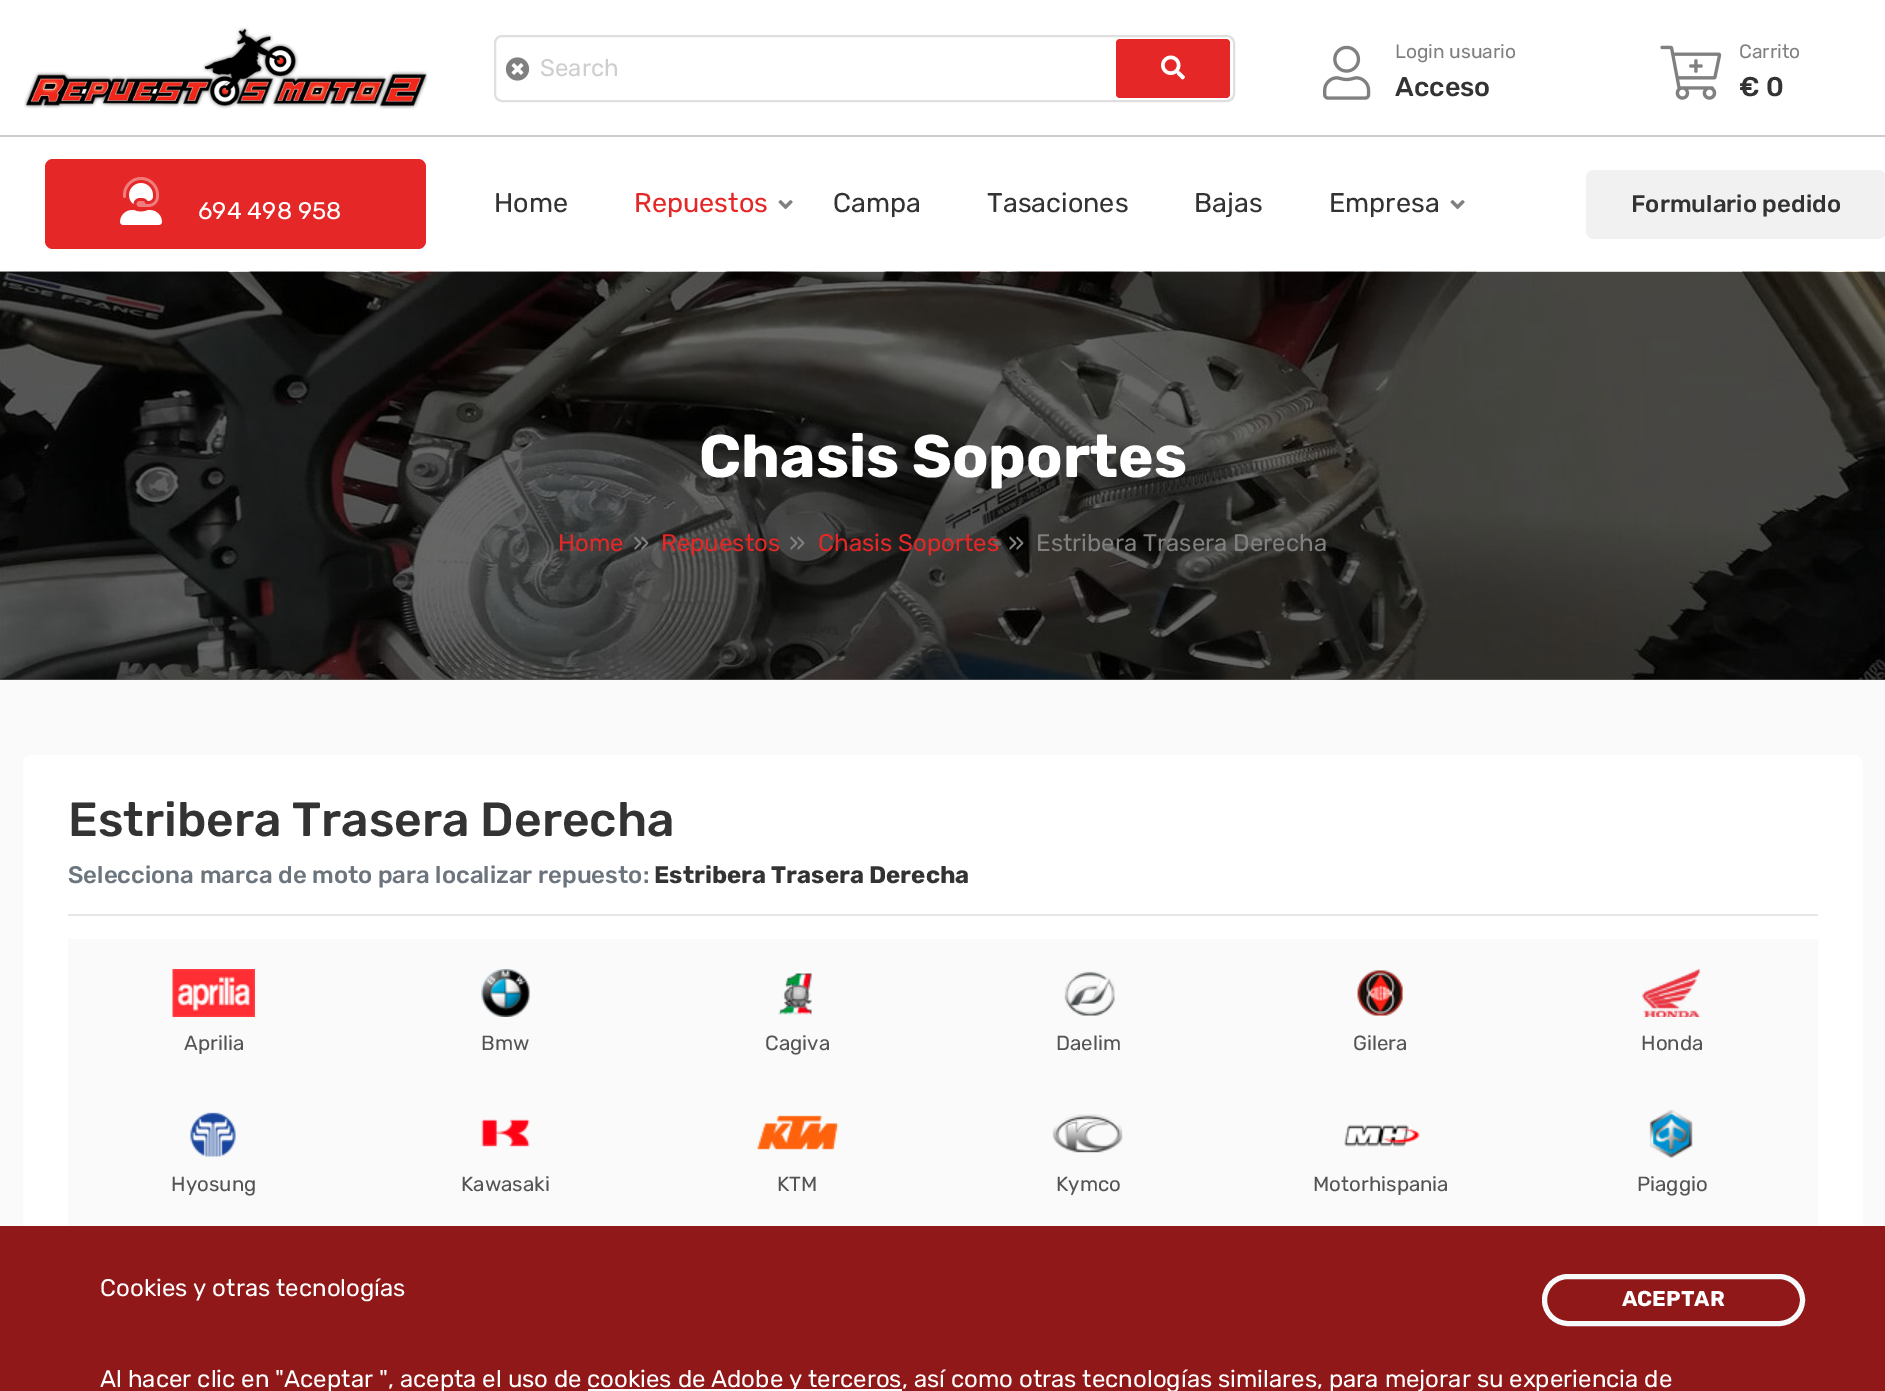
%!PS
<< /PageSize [1885 1391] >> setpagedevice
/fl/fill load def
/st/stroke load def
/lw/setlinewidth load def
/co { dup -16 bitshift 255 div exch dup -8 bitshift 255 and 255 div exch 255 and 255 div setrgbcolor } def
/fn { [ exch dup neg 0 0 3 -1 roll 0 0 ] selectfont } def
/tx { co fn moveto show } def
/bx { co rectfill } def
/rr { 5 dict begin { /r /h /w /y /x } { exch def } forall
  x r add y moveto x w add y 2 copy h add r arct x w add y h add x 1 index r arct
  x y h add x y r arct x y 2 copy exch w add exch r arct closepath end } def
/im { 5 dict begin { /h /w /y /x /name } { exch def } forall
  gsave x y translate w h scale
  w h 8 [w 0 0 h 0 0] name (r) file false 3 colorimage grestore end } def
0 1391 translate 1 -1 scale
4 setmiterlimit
0 0 1885 1391 16#FFFFFF bx
0 679 1885 1 16#666666 bx
0 135 1885 2 16#CCCCCC bx
(media/1.raw) 24 27 404 82 im
16#DFDFDF co
2 lw
495 36 739 65 7 rr st
(media/2.raw) 505 57 25 24 im
16#E52727 co
1116 39 114 59 4 rr fl
(media/3.raw) 1161 55 24 25 im
(media/4.raw) 1323 45 48 55 im
(media/5.raw) 1660 45 62 55 im
45 159 381 90 8 rr fl
(media/7.raw) 120 183 42 42 im
(media/6.raw) 123 177 36 30 im
(media/8.raw) 778 200 15 10 im
(media/8.raw) 1450 200 15 10 im
16#F1F1F1 co
1586 170 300 69 8 rr fl
(media/9.raw) 0 271 1885 409 im
0 680 1885 546 16#FAFAFA bx
16#FFFFFF co
23 755 1840 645 9 rr fl
68 914 1750 2 16#E6E6E6 bx
68 939 1750 287 16#FAFAFA bx
(media/10.raw) 172 969 83 48 im
(media/11.raw) 481 969 49 48 im
(media/12.raw) 778 973 34 42 im
(media/13.raw) 1064 971 51 45 im
(media/14.raw) 1357 970 46 46 im
(media/15.raw) 1642 969 58 48 im
(media/16.raw) 190 1112 46 45 im
(media/17.raw) 481 1119 49 28 im
(media/18.raw) 757 1115 81 35 im
(media/19.raw) 1052 1114 71 39 im
(media/20.raw) 1343 1124 77 23 im
(media/21.raw) 1649 1110 44 48 im
0 1226 1885 165 16#911818 bx
16#F8F9FA co
5 lw
1544.5 1276.5 258 47 23.5 rr st
588 1389 314 2 16#FFFFFF bx
(Search) 540 76 /Rubik-Regular 24 16#CFCECD tx
(Login usuario) 1395 58 /Rubik-Regular 19.25 16#808080 tx
(Acceso) 1395 96 /Rubik-Medium 27 16#333333 tx
(Carrito) 1739 58 /Rubik-Regular 19.25 16#808080 tx
(€ 0) 1739 96 /Rubik-Medium 27 16#333333 tx
(694 498 958) 198 219 /Rubik-Regular 24 16#FFFFFF tx
(Home) 494 212 /Rubik-Regular 27 16#333333 tx
(Repuestos) 634 212 /Rubik-Regular 27 16#E52727 tx
(Campa) 833 212 /Rubik-Regular 27 16#333333 tx
(Tasaciones) 987 212 /Rubik-Regular 27 16#333333 tx
(Bajas) 1194 212 /Rubik-Regular 27 16#333333 tx
(Empresa) 1329 212 /Rubik-Regular 27 16#333333 tx
(Formulario pedido) 1631 212 /Rubik-Medium 24 16#333333 tx
(Chasis Soportes) 699 477 /Rubik-Bold 60 16#FFFFFF tx
(Home) 558 551 /Rubik-Regular 24 16#E52727 tx
(») 633 552 /Rubik-Regular 27 16#808080 tx
(Repuestos) 661 551 /Rubik-Regular 24 16#E52727 tx
(») 789 552 /Rubik-Regular 27 16#808080 tx
(Chasis Soportes) 818 551 /Rubik-Regular 24 16#E52727 tx
(») 1008 552 /Rubik-Regular 27 16#808080 tx
(Estribera Trasera Derecha) 1036 551 /Rubik-Regular 24 16#808080 tx
(Estribera Trasera Derecha) 68 836 /Rubik-Medium 48 16#333333 tx
(Selecciona marca de moto para localizar repuesto:) 68 883 /Rubik-Medium 24 16#6C757D tx
(Estribera Trasera Derecha) 654 883 /Rubik-Bold 24 16#333333 tx
(Aprilia) 184 1050 /Rubik-Regular 20.5 16#545454 tx
(Bmw) 481 1050 /Rubik-Regular 20.5 16#545454 tx
(Cagiva) 765 1050 /Rubik-Regular 20.5 16#545454 tx
(Daelim) 1056 1050 /Rubik-Regular 20.5 16#545454 tx
(Gilera) 1353 1050 /Rubik-Regular 20.5 16#545454 tx
(Honda) 1641 1050 /Rubik-Regular 20.5 16#545454 tx
(Hyosung) 171 1191 /Rubik-Regular 20.5 16#545454 tx
(Kawasaki) 461 1191 /Rubik-Regular 20.5 16#545454 tx
(KTM) 777 1191 /Rubik-Regular 20.5 16#545454 tx
(Kymco) 1056 1191 /Rubik-Regular 20.5 16#545454 tx
(Motorhispania) 1313 1191 /Rubik-Regular 20.5 16#545454 tx
(Piaggio) 1637 1191 /Rubik-Regular 20.5 16#545454 tx
(Cookies y otras tecnologías) 100 1296 /Rubik-Regular 24 16#FFFFFF tx
(ACEPTAR) 1622 1306 /Rubik-Bold 21.5 16#FFFFFF tx
(Al hacer clic en "Aceptar ", acepta el uso de) 100 1387 /Rubik-Regular 24 16#FFFFFF tx
(cookies de Adobe y terceros, así como otras tecnologías similares, para mejorar su experiencia de) 587 1387 /Rubik-Regular 24 16#FFFFFF tx
showpage
